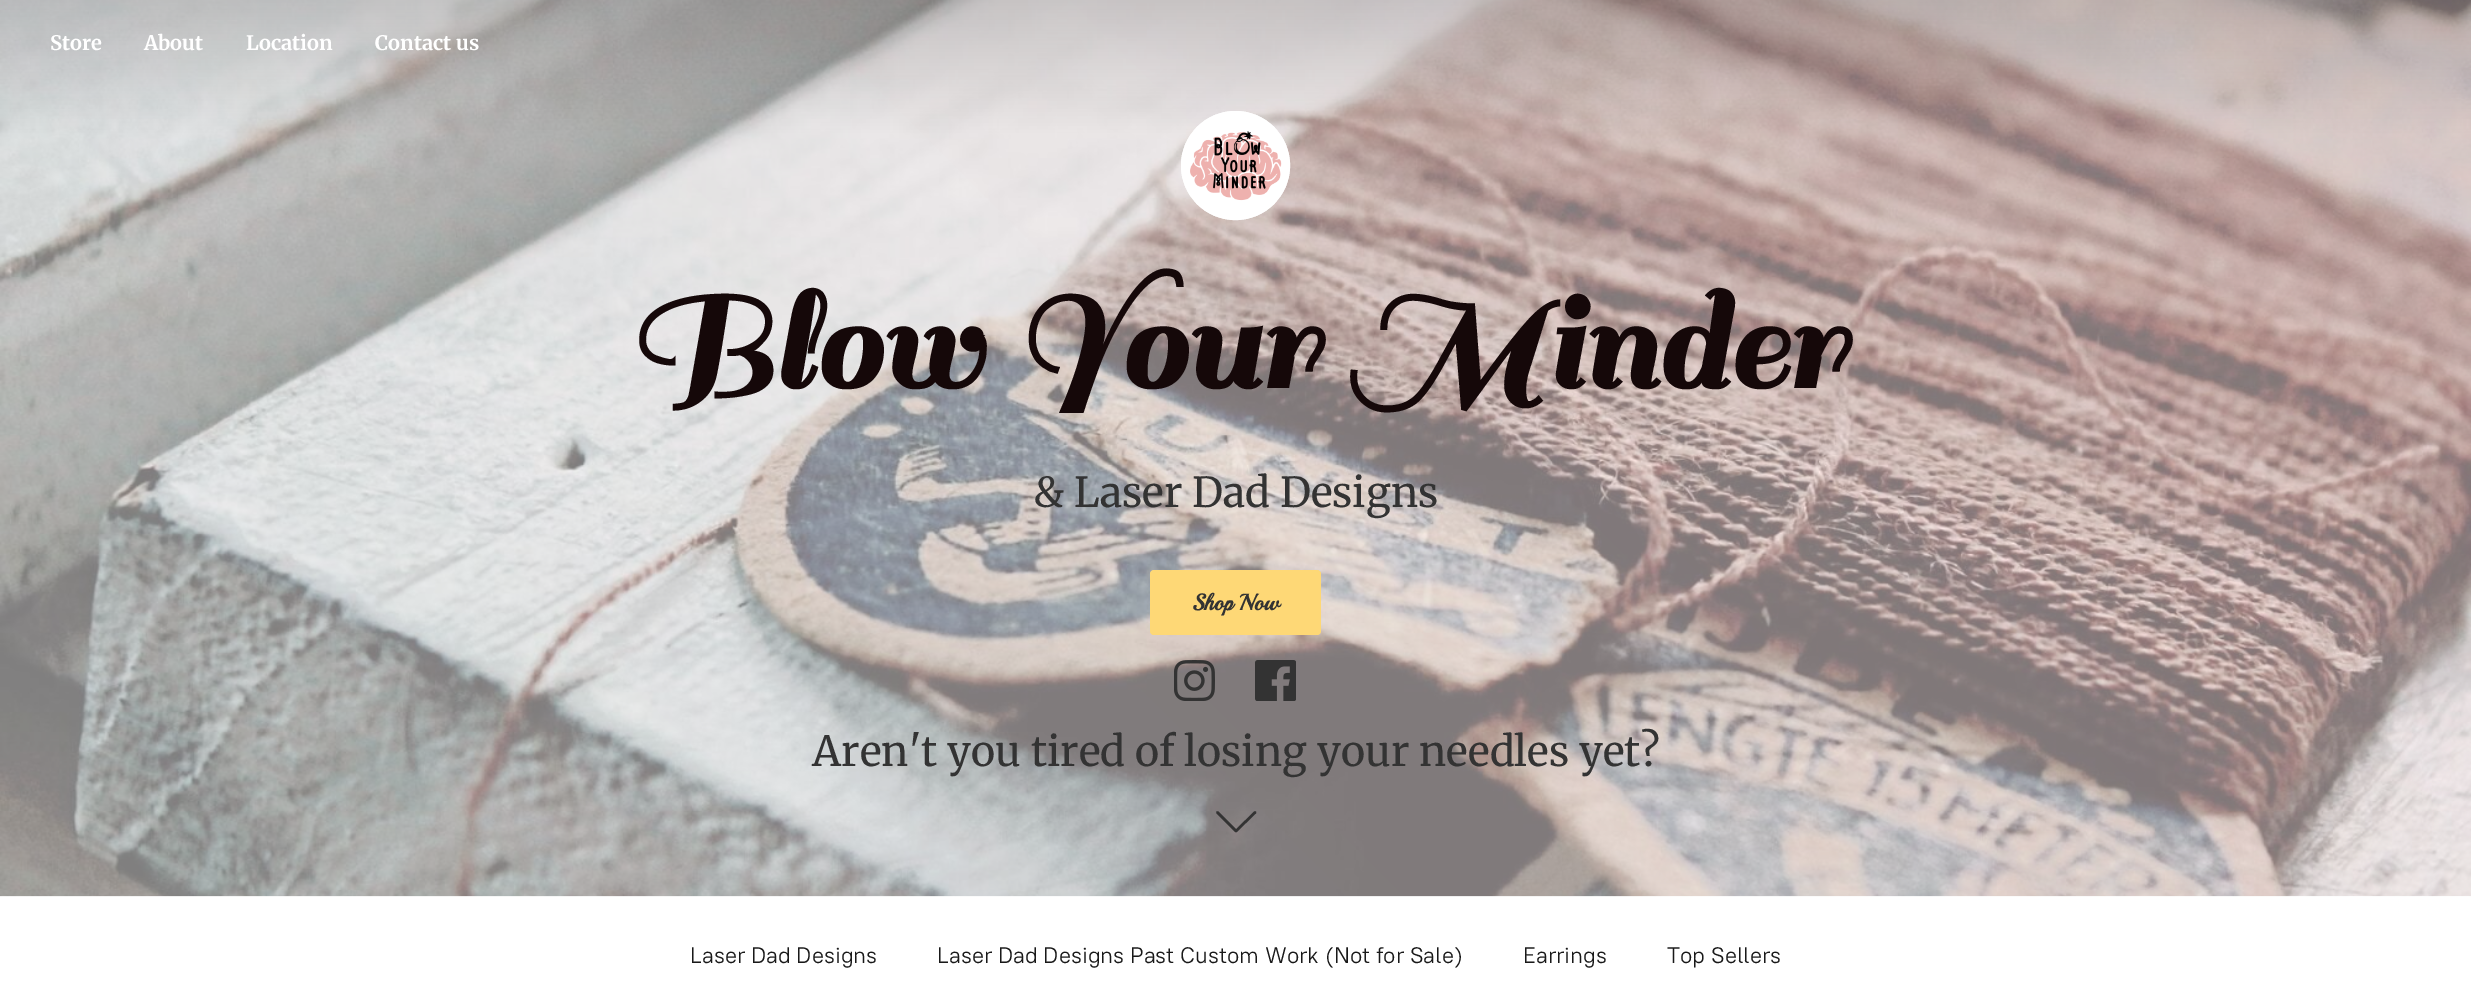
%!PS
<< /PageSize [2471 1003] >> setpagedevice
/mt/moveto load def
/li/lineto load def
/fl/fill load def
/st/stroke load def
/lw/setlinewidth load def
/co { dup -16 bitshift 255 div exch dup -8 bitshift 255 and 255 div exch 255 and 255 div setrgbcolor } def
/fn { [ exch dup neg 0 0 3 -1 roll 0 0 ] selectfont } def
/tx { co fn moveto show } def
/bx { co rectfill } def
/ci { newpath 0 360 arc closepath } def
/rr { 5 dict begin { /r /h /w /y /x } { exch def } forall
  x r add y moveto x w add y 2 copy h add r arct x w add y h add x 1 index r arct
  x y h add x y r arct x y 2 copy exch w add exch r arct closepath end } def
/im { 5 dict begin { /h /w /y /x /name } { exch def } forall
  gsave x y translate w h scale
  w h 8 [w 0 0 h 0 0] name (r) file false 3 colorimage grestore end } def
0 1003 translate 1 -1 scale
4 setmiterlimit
0 0 2471 1003 16#FFFFFF bx
(media/1.raw) 0 0 2471 897 im
1235.5 165.5 54.5 ci fl
(media/2.raw) 1190 131 92 70 im
8 lw
1235.5 165.5 50.5 ci st
16#FED876 co
1150 570 171 65 4 rr fl
(media/3.raw) 1174 660 41 41 im
(media/4.raw) 1255 660 41 41 im
16#333333 co
2.5 lw
1 setlinecap
1 setlinejoin
1255 812.5 mt 1236 831 li 1217.5 812.5 li st
(Store) 50 50 /Merriweather-Bold 20 16#FFFFFF tx
(About) 144 50 /Merriweather-Bold 20 16#FFFFFF tx
(Location) 246 50 /Merriweather-Bold 20 16#FFFFFF tx
(Contact us) 375 50 /Merriweather-Bold 20 16#FFFFFF tx
(Blow Your Minder) 627 388 /Sail-Bold 148.25 16#150809 tx
(& Laser Dad Designs) 1033 507 /Merriweather-Regular 41.25 16#333333 tx
(Shop Now) 1192 610 /Playball-Bold 22.5 16#333333 tx
(Aren't you tired of losing your needles yet?) 812 766 /Merriweather-Regular 41.25 16#333333 tx
(Laser Dad Designs) 690 963 /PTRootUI-Regular 22.5 16#191919 tx
(Laser Dad Designs Past Custom Work \(Not for Sale\)) 937 963 /PTRootUI-Regular 22.5 16#191919 tx
(Earrings) 1523 963 /PTRootUI-Regular 22.5 16#191919 tx
(Top Sellers) 1667 963 /PTRootUI-Regular 22.5 16#191919 tx
showpage
